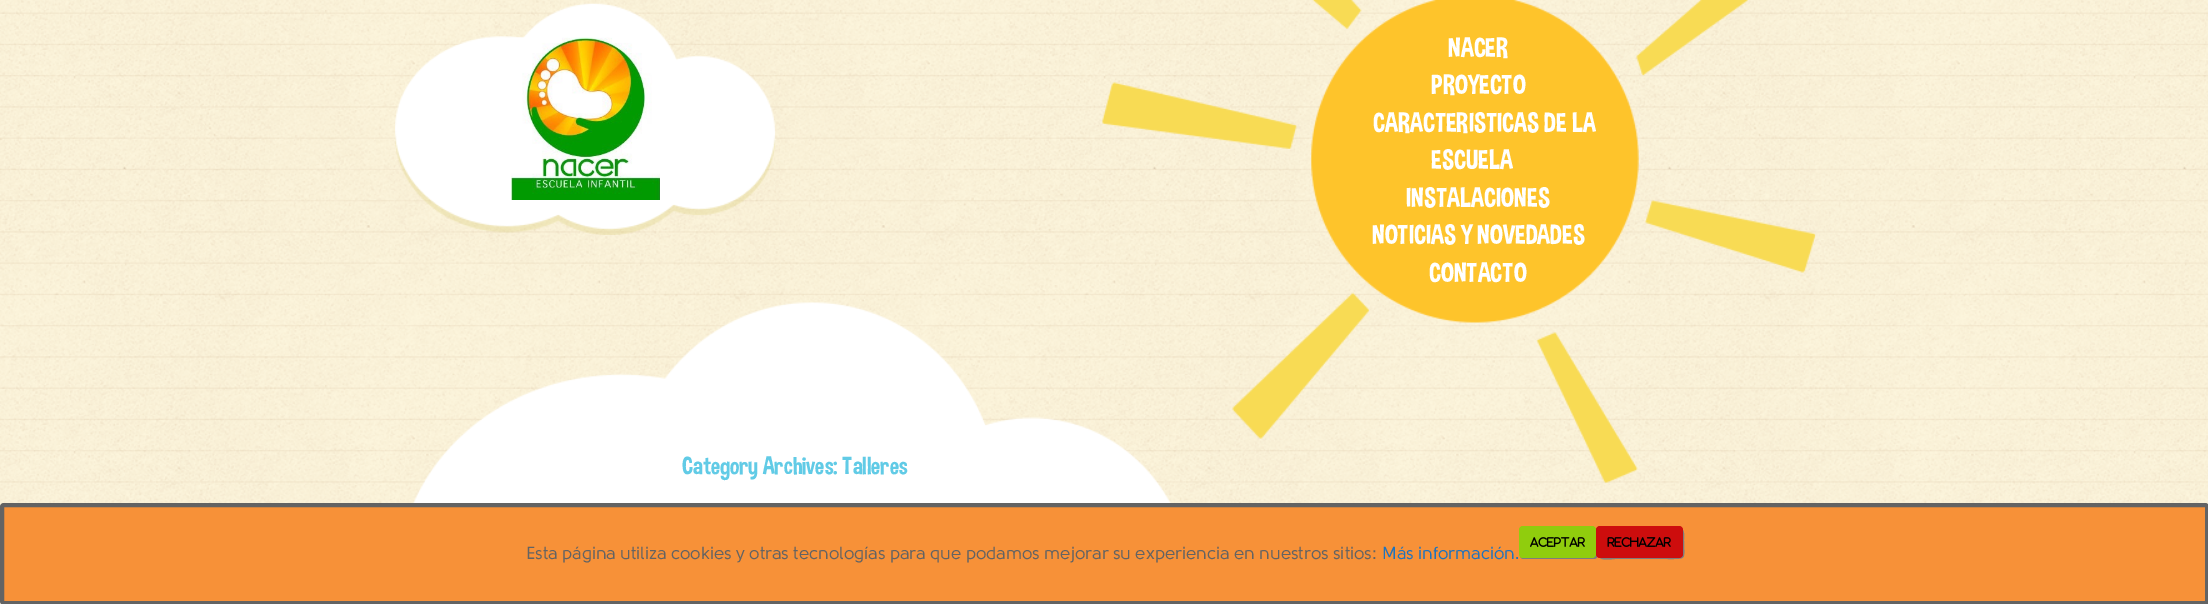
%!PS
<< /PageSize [2208 604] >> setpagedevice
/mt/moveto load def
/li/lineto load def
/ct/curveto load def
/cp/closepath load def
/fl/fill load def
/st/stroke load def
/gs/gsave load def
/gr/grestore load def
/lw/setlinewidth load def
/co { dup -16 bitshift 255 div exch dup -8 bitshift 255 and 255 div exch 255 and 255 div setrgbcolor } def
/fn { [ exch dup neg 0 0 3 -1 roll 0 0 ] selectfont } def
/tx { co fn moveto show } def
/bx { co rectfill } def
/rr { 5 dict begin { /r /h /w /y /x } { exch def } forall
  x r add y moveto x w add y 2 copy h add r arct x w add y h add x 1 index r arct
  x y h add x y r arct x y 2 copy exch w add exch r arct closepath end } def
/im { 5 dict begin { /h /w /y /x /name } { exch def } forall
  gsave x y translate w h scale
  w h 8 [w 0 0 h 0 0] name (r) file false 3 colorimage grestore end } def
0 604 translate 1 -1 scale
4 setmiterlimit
0 0 2208 604 16#FFFFFF bx
(media/1.raw) 0 0 2208 604 im
(media/2.raw) 395 3 381 232 im
(media/3.raw) 511 37 149 163 im
(media/4.raw) 1102 0 714 483 im
(media/5.raw) 413 302 759 201 im
16#F79138 co
2 505 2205 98 2 rr gs fl gr
16#636363 co
4 lw
st
16#7D7D7D co
1520 557 mt 1521 558 1522 559 1524 559 ct 1594 559 li 1596 559 1598 557 1598 555 ct 1598 532 li 1598 530 1597 529 1596 528 ct 1596 546 li 1596 560 1596 558 1581 558 ct 1534 558 li 1530 558 1524 559 1520 557 ct cp fl
16#90CD0D co
1519 526 77 32 4 rr fl
(media/6.raw) 1530 537 55 10 im
16#7D7D7D co
1599 557 mt 1601 561 1612 559 1615 559 ct 1667 559 li 1688 559 1684 560 1684 540 ct 1684 537 1685 531 1682 529 ct 1682 546 li 1682 561 1682 558 1666 558 ct cp fl
16#CD0D0D co
1596 526 87 32 4 rr fl
(media/7.raw) 1607 537 64 10 im
(NACER) 1448 58 /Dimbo-Regular 27.5 16#FFFFFF tx
(PROYECTO) 1431 95 /Dimbo-Regular 27.5 16#FFFFFF tx
(CARACTERISTICAS DE LA) 1373 133 /Dimbo-Regular 27.5 16#FFFFFF tx
(ESCUELA) 1431 170 /Dimbo-Regular 27.5 16#FFFFFF tx
(INSTALACIONES) 1406 208 /Dimbo-Regular 27.5 16#FFFFFF tx
(NOTICIAS Y NOVEDADES) 1372 245 /Dimbo-Regular 27.5 16#FFFFFF tx
(CONTACTO) 1429 283 /Dimbo-Regular 27.5 16#FFFFFF tx
(Category Archives: Talleres) 682 475 /Dimbo-Regular 25 16#61CBE6 tx
(Esta página utiliza cookies y otras tecnologías para que podamos mejorar su experiencia en nuestros sitios:) 526 559 /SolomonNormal-Regular 17.5 16#636363 tx
(Más información.) 1382 559 /SolomonNormal-Regular 17.5 16#1E73BE tx
showpage
